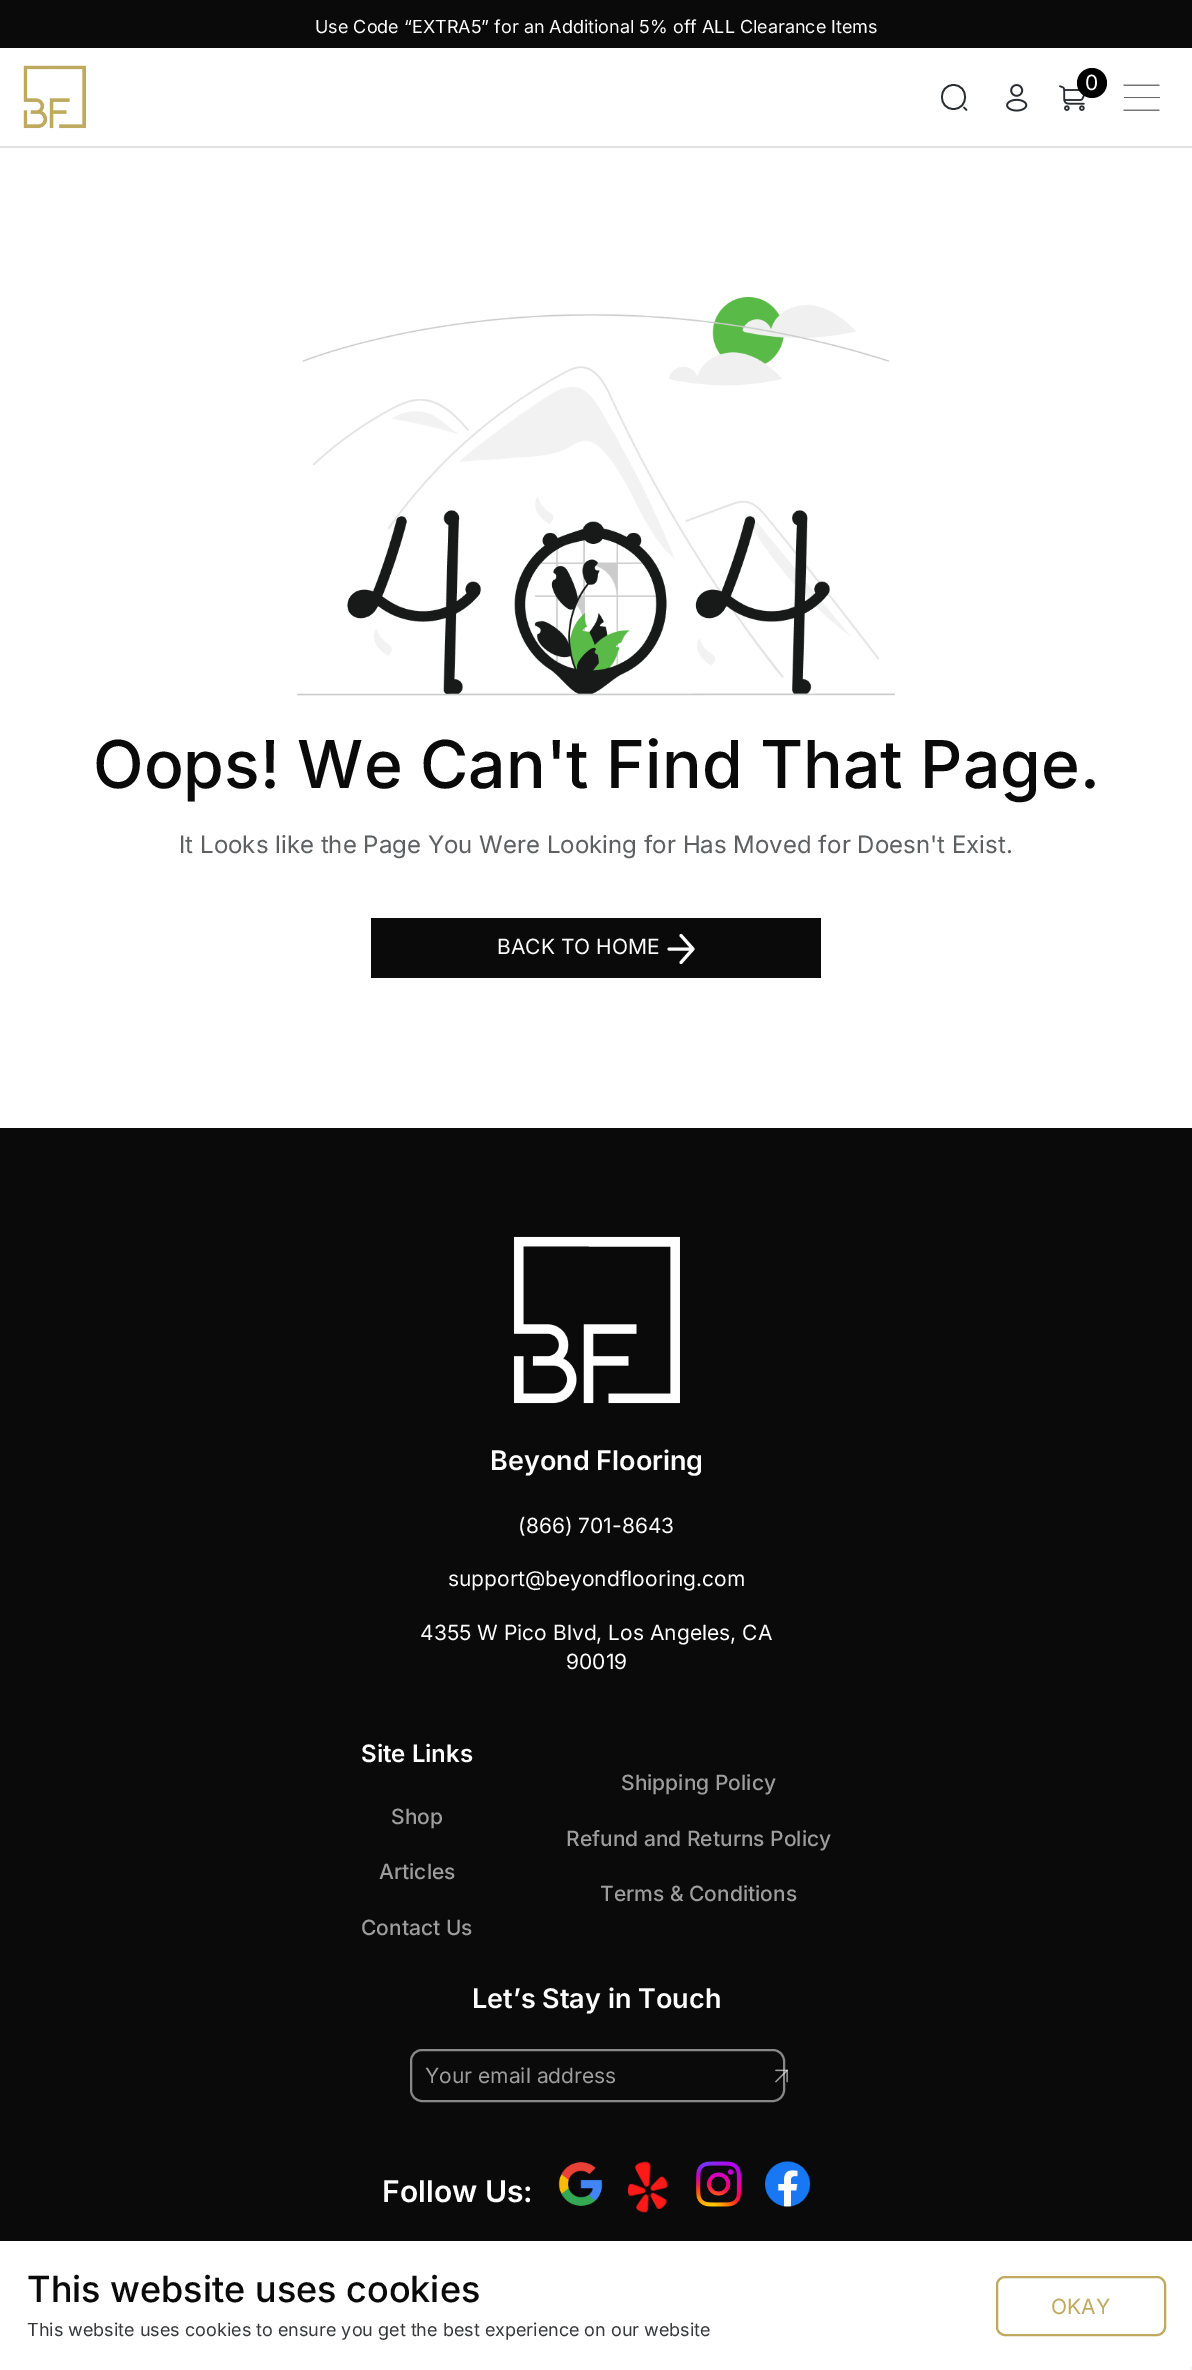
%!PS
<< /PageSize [1192 2370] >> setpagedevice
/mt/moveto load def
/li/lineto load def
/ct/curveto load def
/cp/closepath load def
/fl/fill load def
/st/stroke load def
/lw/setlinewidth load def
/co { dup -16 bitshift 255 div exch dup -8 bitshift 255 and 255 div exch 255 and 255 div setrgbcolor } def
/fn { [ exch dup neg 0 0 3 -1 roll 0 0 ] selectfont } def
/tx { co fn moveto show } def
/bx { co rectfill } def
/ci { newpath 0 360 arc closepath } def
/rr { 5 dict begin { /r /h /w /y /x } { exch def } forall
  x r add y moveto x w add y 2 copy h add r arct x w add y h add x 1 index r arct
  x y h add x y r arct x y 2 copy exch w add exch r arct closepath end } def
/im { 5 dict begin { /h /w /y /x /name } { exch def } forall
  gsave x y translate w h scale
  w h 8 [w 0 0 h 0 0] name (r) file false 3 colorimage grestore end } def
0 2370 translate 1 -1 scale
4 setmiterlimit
0 0 1192 2370 16#FFFFFF bx
0 0 1192 48 16#0A0A0B bx
0 146 1192 2 16#E1E1E1 bx
(media/1.raw) 23 65 63 64 im
16#292D32 co
1.7 lw
1 setlinecap
1 setlinejoin
953.5 109 mt 969 109 969 85 953.5 85 ct 938 85 938 109 953.5 109 ct cp 966.5 110 mt 964 107.5 li st
(media/2.raw) 1006 84 22 28 im
(media/3.raw) 1059 85 26 26 im
16#000000 co
1092 83 15 ci fl
.6 lw
0 setlinecap
0 setlinejoin
1123.5 85 mt 1159.5 85 li st
1124 97 36 1 16#666666 bx
16#000000 co
1123.5 110 mt 1159.5 110 li st
(media/4.raw) 297 297 598 399 im
371 918 450 60 16#0A0A0B bx
16#FFFFFF co
3 lw
1 setlinecap
1 setlinejoin
693 949 mt 669 949 li 693 949 mt 681 935.5 li 693 949 mt 681 962.5 li st
0 1128 1192 1113 16#0A0A0B bx
(media/5.raw) 513 1236 167 168 im
16#888888 co
2 lw
0 setlinecap
0 setlinejoin
411 2050 373 51 11 rr st
(media/6.raw) 775 2069 13 14 im
(media/7.raw) 558 2162 45 44 im
(media/8.raw) 627 2161 43 52 im
(media/9.raw) 696 2161 45 46 im
(media/10.raw) 765 2161 45 46 im
16#BEA95E co
997 2277 168 58 8 rr st
1190 2367 2 3 16#F5F5F5 bx
(Use Code “EXTRA5” for an Additional 5% off ALL Clearance Items) 315 33 /Inter-Regular 18 16#FFFFFF tx
(0) 1085 90 /Inter-Regular 21 16#FFFFFF tx
(Oops! We Can't Find That Page.) 93 788 /Inter-Medium 66 16#0A0A0B tx
(It Looks like the Page You Were Looking for Has Moved for Doesn't Exist.) 179 853 /Inter-Regular 24 16#5E5F61 tx
(BACK TO HOME) 497 954 /Inter-Regular 21 16#FFFFFF tx
(Beyond Flooring) 490 1470 /Inter-SemiBold 27 16#FFFFFF tx
(\(866\) 701-8643) 518 1533 /Inter-Regular 21 16#FFFFFF tx
(support@beyondflooring.com) 448 1586 /Inter-Regular 21 16#FFFFFF tx
(4355 W Pico Blvd, Los Angeles, CA) 420 1640 /Inter-Regular 21 16#FFFFFF tx
(90019) 566 1669 /Inter-Regular 21 16#FFFFFF tx
(Site Links) 361 1762 /Inter-SemiBold 24 16#FFFFFF tx
(Shop) 391 1824 /Inter-Medium 21 16#9D9D9D tx
(Articles) 379 1879 /Inter-Medium 21 16#9D9D9D tx
(Contact Us) 361 1935 /Inter-Medium 21 16#9D9D9D tx
(Shipping Policy) 621 1790 /Inter-Medium 21 16#9D9D9D tx
(Refund and Returns Policy) 566 1846 /Inter-Medium 21 16#9D9D9D tx
(Terms & Conditions) 600 1901 /Inter-Medium 21 16#9D9D9D tx
(Let’s Stay in Touch) 472 2008 /Inter-SemiBold 27 16#FFFFFF tx
(Your email address) 425 2083 /Inter-Regular 21 16#9D9D9D tx
(Follow Us:) 382 2202 /Inter-SemiBold 30 16#FFFFFF tx
(This website uses cookies) 27 2302 /Inter-Medium 36 16#0A0A0B tx
(This website uses cookies to ensure you get the best experience on our website) 27 2336 /Inter-Regular 18 16#363739 tx
(OKAY) 1051 2314 /Inter-Regular 21 16#BEA95E tx
showpage
